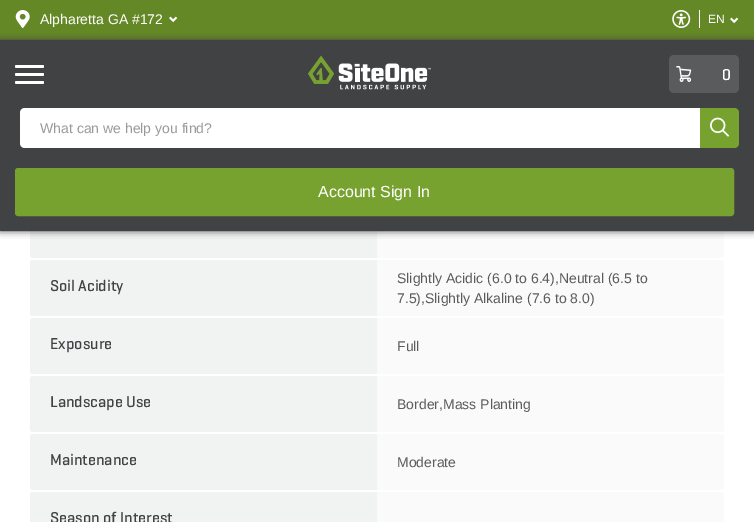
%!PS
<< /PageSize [754 522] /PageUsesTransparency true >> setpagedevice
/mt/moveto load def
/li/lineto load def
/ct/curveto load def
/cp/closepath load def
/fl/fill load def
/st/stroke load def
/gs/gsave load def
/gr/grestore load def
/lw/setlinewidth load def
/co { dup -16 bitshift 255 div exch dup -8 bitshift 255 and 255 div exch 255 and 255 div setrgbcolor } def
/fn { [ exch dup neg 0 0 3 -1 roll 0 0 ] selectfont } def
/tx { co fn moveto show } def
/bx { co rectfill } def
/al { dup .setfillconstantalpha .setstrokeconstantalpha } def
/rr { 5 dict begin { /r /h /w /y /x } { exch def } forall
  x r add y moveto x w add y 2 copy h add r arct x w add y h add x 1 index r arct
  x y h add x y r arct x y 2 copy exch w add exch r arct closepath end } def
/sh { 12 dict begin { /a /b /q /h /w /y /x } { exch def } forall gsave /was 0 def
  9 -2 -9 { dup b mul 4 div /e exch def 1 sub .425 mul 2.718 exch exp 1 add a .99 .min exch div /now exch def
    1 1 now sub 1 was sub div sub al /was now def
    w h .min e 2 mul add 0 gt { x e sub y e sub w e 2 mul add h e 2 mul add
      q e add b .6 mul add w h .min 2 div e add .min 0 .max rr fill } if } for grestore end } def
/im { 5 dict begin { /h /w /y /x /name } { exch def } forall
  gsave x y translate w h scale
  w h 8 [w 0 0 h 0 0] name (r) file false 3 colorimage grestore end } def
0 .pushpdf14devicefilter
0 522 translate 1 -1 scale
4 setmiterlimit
0 0 754 522 16#FFFFFF bx
16#F1F2F2 co
33 202 mt 377 202 li 377 258 li 33 258 li 31.5 258 30 256.5 30 255 ct 30 205 li 30 203.5 31.5 202 33 202 ct cp fl
16#FAFAFA co
377 202 mt 721 202 li 722.5 202 724 203.5 724 205 ct 724 255 li 724 256.5 722.5 258 721 258 ct 377 258 li cp fl
0 40 754 191 16#414244 bx
0 0 754 40 16#648825 bx
(media/1.raw) 15 10 15 18 im
(media/2.raw) 169 16 9 7 im
(media/3.raw) 672 10 19 18 im
699 10 1 18 16#FFFFFF bx
(media/2.raw) 730 17 9 7 im
gs
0 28 mt 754 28 li 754 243 li 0 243 li cp 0 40 mt 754 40 li 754 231 li 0 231 li cp eoclip newpath
16#444444 co
0 40 754 191 0 3.5 1 sh
gr
15 65 29 3 1.5 rr fl
15 73 29 3 1.5 rr fl
15 81 29 3 1.5 rr fl
(media/4.raw) 308 55 123 35 im
16#5A5B5D co
669 55 70 38 5 rr fl
(media/5.raw) 676 66 16 16 im
16#FFFFFF co
25 108 mt 700 108 li 700 148 li 25 148 li 22 148 20 146 20 143 ct 20 113 li 20 110 22 108 25 108 ct cp fl
16#78A22F co
700 108 mt 734 108 li 737 108 739 110 739 113 ct 739 143 li 739 146 737 148 734 148 ct 700 148 li cp fl
(media/6.raw) 710 117 19 20 im
16.5 169.5 716 45 1.5 rr gs fl gr
3 lw
st
16#F1F2F2 co
33 260 mt 377 260 li 377 316 li 33 316 li 31.5 316 30 314.5 30 313 ct 30 263 li 30 261.5 31.5 260 33 260 ct cp fl
16#FAFAFA co
377 260 mt 721 260 li 722.5 260 724 261.5 724 263 ct 724 313 li 724 314.5 722.5 316 721 316 ct 377 316 li cp fl
16#F1F2F2 co
33 318 mt 377 318 li 377 374 li 33 374 li 31.5 374 30 372.5 30 371 ct 30 321 li 30 319.5 31.5 318 33 318 ct cp fl
16#FAFAFA co
377 318 mt 721 318 li 722.5 318 724 319.5 724 321 ct 724 371 li 724 372.5 722.5 374 721 374 ct 377 374 li cp fl
16#F1F2F2 co
33 376 mt 377 376 li 377 432 li 33 432 li 31.5 432 30 430.5 30 429 ct 30 379 li 30 377.5 31.5 376 33 376 ct cp fl
16#FAFAFA co
377 376 mt 721 376 li 722.5 376 724 377.5 724 379 ct 724 429 li 724 430.5 722.5 432 721 432 ct 377 432 li cp fl
16#F1F2F2 co
33 434 mt 377 434 li 377 490 li 33 490 li 31.5 490 30 488.5 30 487 ct 30 437 li 30 435.5 31.5 434 33 434 ct cp fl
16#FAFAFA co
377 434 mt 721 434 li 722.5 434 724 435.5 724 437 ct 724 487 li 724 488.5 722.5 490 721 490 ct 377 490 li cp fl
16#F1F2F2 co
33 492 mt 377 492 li 377 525 li 33 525 li 31.5 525 30 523.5 30 522 ct 30 495 li 30 493.5 31.5 492 33 492 ct cp fl
16#FAFAFA co
377 492 mt 721 492 li 722.5 492 724 493.5 724 495 ct 724 522 li 724 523.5 722.5 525 721 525 ct 377 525 li cp fl
(Alpharetta GA #172) 40 24 /LiberationSans-Regular 14 16#FFFFFF tx
(EN) 708 23 /LiberationSans-Regular 12 16#FFFFFF tx
(0) 722 80 /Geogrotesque-Medium 16 16#FFFFFF tx
(What can we help you find?) 40 133 /LiberationSans-Regular 14 16#999999 tx
(Account Sign In) 318 197 /LiberationSans-Regular 16 16#FFFFFF tx
(Soil Acidity) 50 291 /Geogrotesque-Medium 16 16#414244 tx
(Slightly Acidic \(6.0 to 6.4\),Neutral \(6.5 to) 397 283 /LiberationSans-Regular 14 16#5A5B5D tx
(7.5\),Slightly Alkaline \(7.6 to 8.0\)) 397 303 /LiberationSans-Regular 14 16#5A5B5D tx
(Exposure) 50 349 /Geogrotesque-Medium 16 16#414244 tx
(Full) 397 351 /LiberationSans-Regular 14 16#5A5B5D tx
(Landscape Use) 50 407 /Geogrotesque-Medium 16 16#414244 tx
(Border,Mass Planting) 397 409 /LiberationSans-Regular 14 16#5A5B5D tx
(Maintenance) 50 465 /Geogrotesque-Medium 16 16#414244 tx
(Moderate) 397 467 /LiberationSans-Regular 14 16#5A5B5D tx
(Season of Interest) 50 523 /Geogrotesque-Medium 16 16#414244 tx
.poppdf14devicefilter showpage
